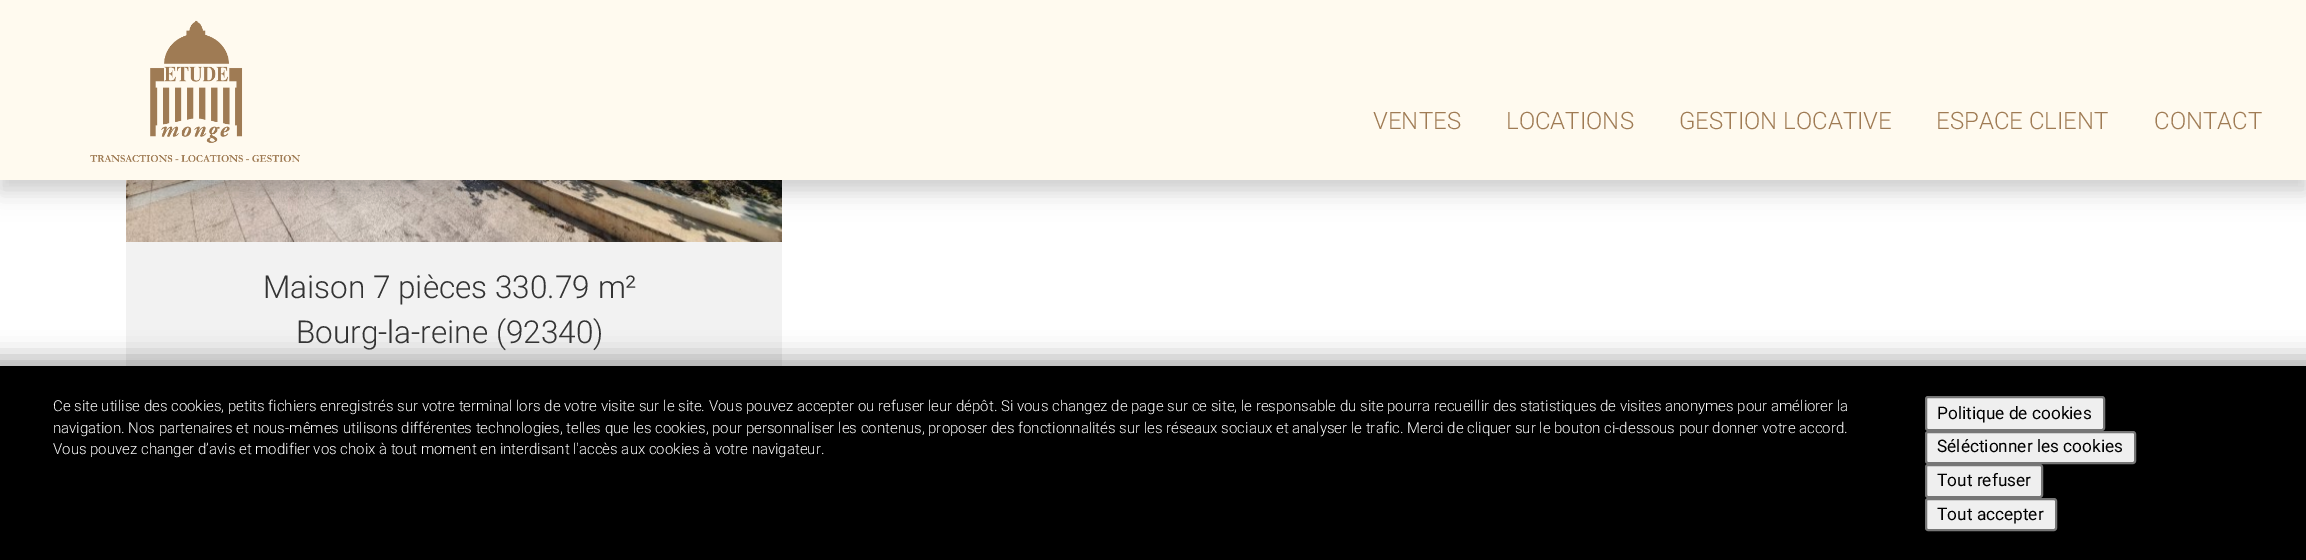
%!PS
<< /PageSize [2306 560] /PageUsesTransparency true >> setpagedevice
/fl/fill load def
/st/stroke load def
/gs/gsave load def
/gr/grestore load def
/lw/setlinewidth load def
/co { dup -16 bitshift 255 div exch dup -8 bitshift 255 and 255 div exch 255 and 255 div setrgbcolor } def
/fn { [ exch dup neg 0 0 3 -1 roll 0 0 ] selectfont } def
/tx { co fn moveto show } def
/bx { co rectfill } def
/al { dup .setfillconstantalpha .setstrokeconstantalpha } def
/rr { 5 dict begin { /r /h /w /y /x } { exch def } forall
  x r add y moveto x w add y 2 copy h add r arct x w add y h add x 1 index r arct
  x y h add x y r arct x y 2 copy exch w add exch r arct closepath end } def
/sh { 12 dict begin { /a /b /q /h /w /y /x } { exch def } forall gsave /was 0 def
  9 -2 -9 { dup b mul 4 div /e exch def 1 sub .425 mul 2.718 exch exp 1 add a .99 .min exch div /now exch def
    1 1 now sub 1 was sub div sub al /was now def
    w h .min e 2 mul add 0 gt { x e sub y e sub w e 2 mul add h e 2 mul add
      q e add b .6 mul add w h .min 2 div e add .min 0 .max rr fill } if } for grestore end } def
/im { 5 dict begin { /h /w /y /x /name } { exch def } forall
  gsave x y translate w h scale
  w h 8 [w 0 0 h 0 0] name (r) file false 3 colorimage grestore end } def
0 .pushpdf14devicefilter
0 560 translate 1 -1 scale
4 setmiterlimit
0 0 2306 560 16#FFFFFF bx
(media/2.raw) 126 180 656 62 im
16#000000 co
0 9 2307 180 0 7.5 .1 sh
0 15 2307 180 0 12 .1 sh
0 0 2306 180 16#FFFAEF bx
(media/1.raw) 90 20 210 142 im
126 242 656 124 16#F2F2F2 bx
16#000000 co
0 375 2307 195 0 7.5 .3 sh
-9 357 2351 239 0 12 .3 sh
0 366 2306 194 16#000000 bx
16#EFEFEF co
1926 397 178 33 2 rr gs fl gr
16#767676 co
2 lw
st
16#EFEFEF co
1926 432 209 31 2 rr gs fl gr
16#767676 co
st
16#EFEFEF co
1926 465 116 32 2 rr gs fl gr
16#767676 co
st
16#EFEFEF co
1926 499 130 31 2 rr gs fl gr
16#767676 co
st
(VENTES) 1373 129 /Roboto-Light 24 16#9F7B54 tx
(LOCATIONS) 1506 129 /Roboto-Light 24 16#9F7B54 tx
(GESTION LOCATIVE) 1679 129 /Roboto-Light 24 16#9F7B54 tx
(ESPACE CLIENT) 1936 129 /Roboto-Light 24 16#9F7B54 tx
(CONTACT) 2154 129 /Roboto-Light 24 16#9F7B54 tx
(Maison 7 pièces 330.79 m²) 263 298 /Roboto-Light 31.5 16#333333 tx
(Bourg-la-reine \(92340\)) 296 343 /Roboto-Light 31.5 16#333333 tx
(Ce site utilise des cookies, petits fichiers enregistrés sur votre terminal lors de votre visite sur le site. Vous pouvez accepter ou refuser leur dépôt. Si vous changez de page sur ce site, le responsable du site pourra recueillir des statistiques de visites anonymes pour améliorer la) 53 411 /Roboto-Light 15 16#FFFFFF tx
(navigation. Nos partenaires et nous-mêmes utilisons différentes technologies, telles que les cookies, pour personnaliser les contenus, proposer des fonctionnalités sur les réseaux sociaux et analyser le trafic. Merci de cliquer sur le bouton ci-dessous pour donner votre accord.) 53 433 /Roboto-Light 15 16#FFFFFF tx
(Vous pouvez changer d’avis et modifier vos choix à tout moment en interdisant l'accès aux cookies à votre navigateur.) 53 454 /Roboto-Light 15 16#FFFFFF tx
(Politique de cookies) 1937 419 /Roboto-Regular 17.25 16#000000 tx
(Séléctionner les cookies) 1937 452 /Roboto-Regular 17.25 16#000000 tx
(Tout refuser) 1937 486 /Roboto-Regular 17.25 16#000000 tx
(Tout accepter) 1937 520 /Roboto-Regular 17.25 16#000000 tx
.poppdf14devicefilter showpage
